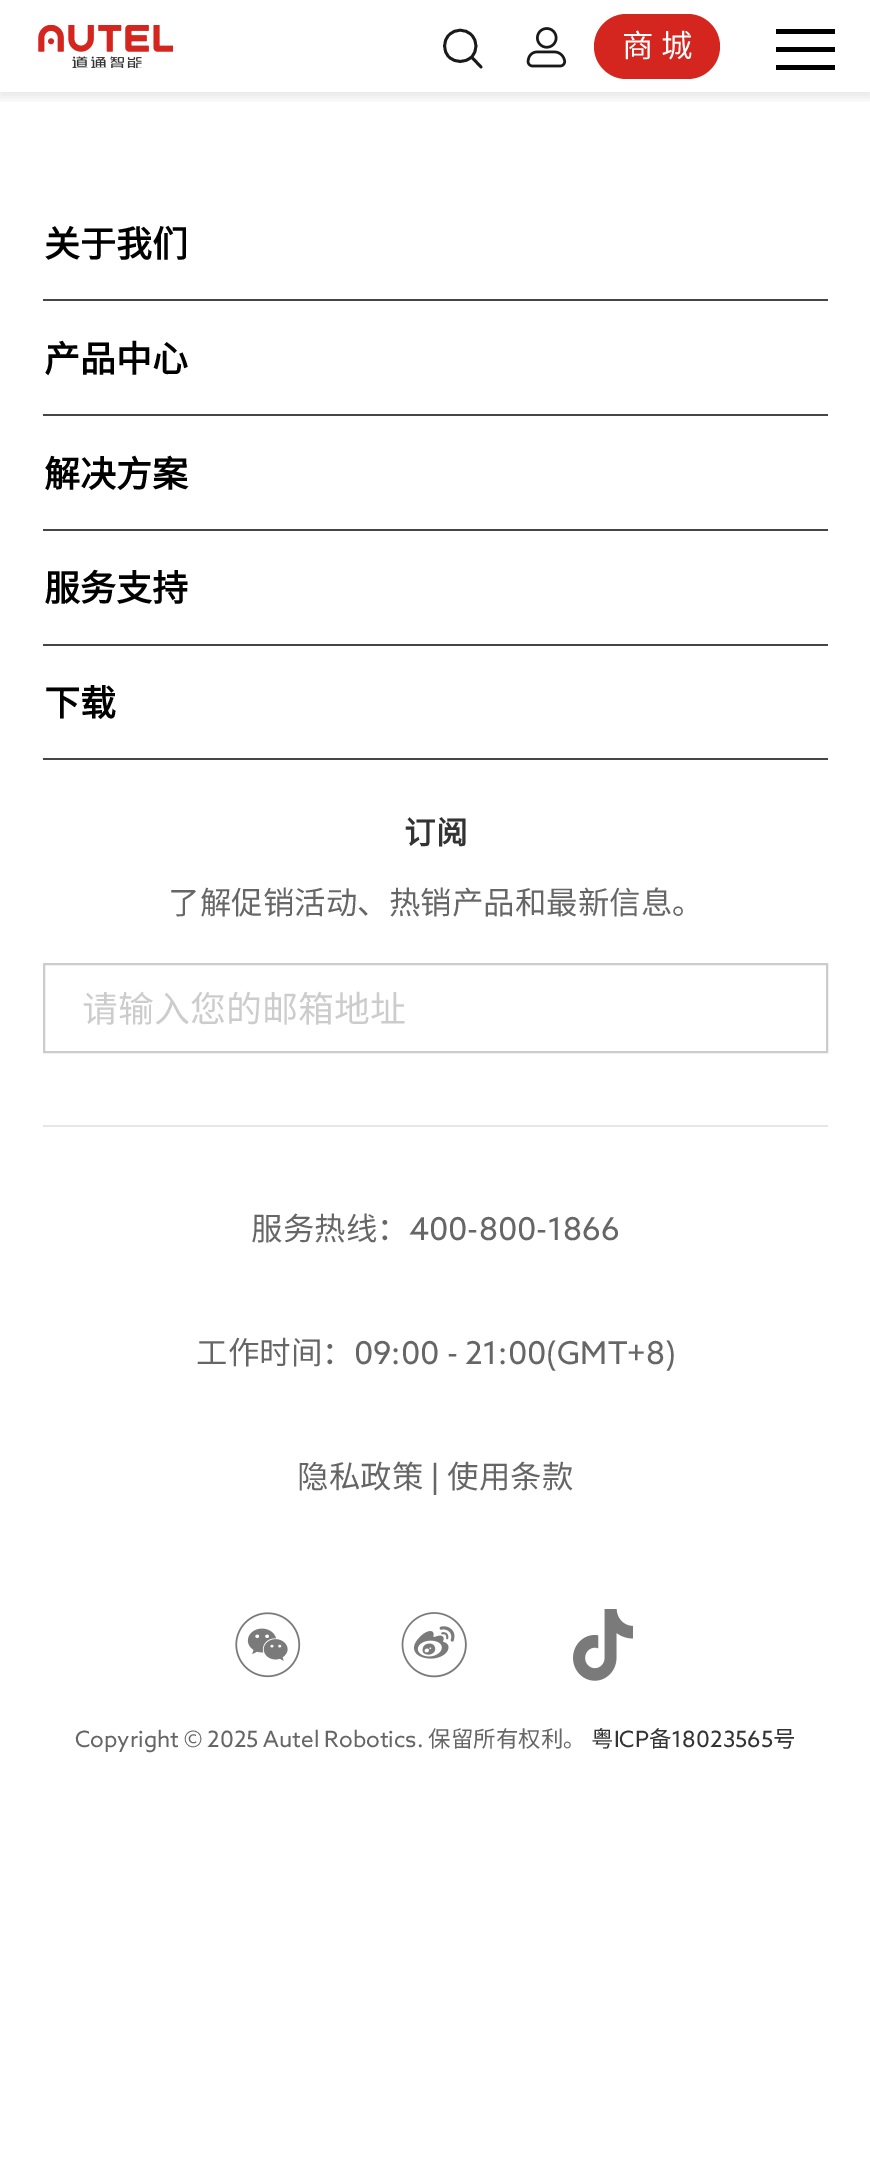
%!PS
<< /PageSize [870 2161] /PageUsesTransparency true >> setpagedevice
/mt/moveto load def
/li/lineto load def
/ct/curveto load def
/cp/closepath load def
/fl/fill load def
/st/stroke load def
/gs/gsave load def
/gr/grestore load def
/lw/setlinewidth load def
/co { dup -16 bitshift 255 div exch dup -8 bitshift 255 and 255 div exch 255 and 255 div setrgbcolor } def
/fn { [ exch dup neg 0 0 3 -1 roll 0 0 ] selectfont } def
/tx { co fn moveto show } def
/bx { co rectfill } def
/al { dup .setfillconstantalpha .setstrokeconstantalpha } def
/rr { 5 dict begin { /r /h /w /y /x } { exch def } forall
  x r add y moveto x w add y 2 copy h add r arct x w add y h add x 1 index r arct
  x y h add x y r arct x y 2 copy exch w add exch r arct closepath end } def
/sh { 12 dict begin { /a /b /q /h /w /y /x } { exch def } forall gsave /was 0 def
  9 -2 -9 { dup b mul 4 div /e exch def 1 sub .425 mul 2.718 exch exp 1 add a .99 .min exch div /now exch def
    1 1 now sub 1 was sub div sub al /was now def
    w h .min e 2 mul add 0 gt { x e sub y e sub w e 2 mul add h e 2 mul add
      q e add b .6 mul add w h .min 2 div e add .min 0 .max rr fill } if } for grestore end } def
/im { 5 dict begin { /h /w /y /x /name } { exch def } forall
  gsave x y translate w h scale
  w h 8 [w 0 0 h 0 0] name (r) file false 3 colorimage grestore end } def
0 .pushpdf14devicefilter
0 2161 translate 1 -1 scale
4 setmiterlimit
0 0 870 2161 16#FFFFFF bx
gs
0 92 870 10 rectclip
16#000000 co
0 5 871 92 0 5.5 .1 sh
gr
(media/1.raw) 38 25 135 43 im
16#1A1A1A co
2.8 lw
1 setlinecap
1 setlinejoin
471.5 57 mt 477.5 51 477.5 41 471.5 35 ct 465 28.5 455.5 28.5 449 35 ct 443 41 443 51 449 57 ct 455.5 63 465 63 471.5 57 ct cp 472.5 58 mt 481 67 li st
(media/2.raw) 526 27 41 41 im
16#D4251F co
594 14 126 65 32.5 rr fl
776 29 59 5 16#000000 bx
776 47 59 5 16#000000 bx
776 65 59 5 16#000000 bx
43 299 785 2 16#464646 bx
43 414 785 2 16#464646 bx
43 529 785 2 16#464646 bx
43 644 785 2 16#464646 bx
43 758 785 2 16#464646 bx
16#CCCCCC co
2 lw
0 setlinecap
0 setlinejoin
44 964 783 88 rectstroke
43 1125 785 2 16#E6E6E6 bx
(media/3.raw) 235 1612 66 66 im
(media/4.raw) 401 1612 66 66 im
(media/5.raw) 573 1609 60 72 im
(商 城) 622 57 /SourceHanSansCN-Regular 31.5 16#FFFFFF tx
(关于我们) 44 257 /SourceHanSansCN-Bold 36 16#000000 tx
(产品中心) 44 372 /SourceHanSansCN-Bold 36 16#000000 tx
(解决方案) 44 487 /SourceHanSansCN-Bold 36 16#000000 tx
(服务支持) 44 601 /SourceHanSansCN-Bold 36 16#000000 tx
(下载) 44 716 /SourceHanSansCN-Bold 36 16#000000 tx
(订阅) 404 844 /SourceHanSansCN-Bold 31.5 16#333333 tx
(了解促销活动、热销产品和最新信息。) 168 914 /SourceHanSansCN-Regular 31.5 16#666666 tx
(请输入您的邮箱地址) 82 1022 /SourceHanSansCN-Regular 36 16#CCCCCC tx
(服务热线：400-800-1866) 251 1240 /SourceHanSansCN-Regular 31.5 16#666666 tx
(工作时间：09:00 - 21:00\(GMT+8\)) 196 1364 /SourceHanSansCN-Regular 31.5 16#666666 tx
(隐私政策 | 使用条款) 297 1488 /SourceHanSansCN-Regular 31.5 16#666666 tx
(Copyright © 2025 Autel Robotics. 保留所有权利。) 75 1747 /SourceHanSansCN-Regular 22.5 16#666666 tx
(粤ICP备18023565号) 591 1747 /SourceHanSansCN-Regular 22.5 16#333333 tx
.poppdf14devicefilter showpage
